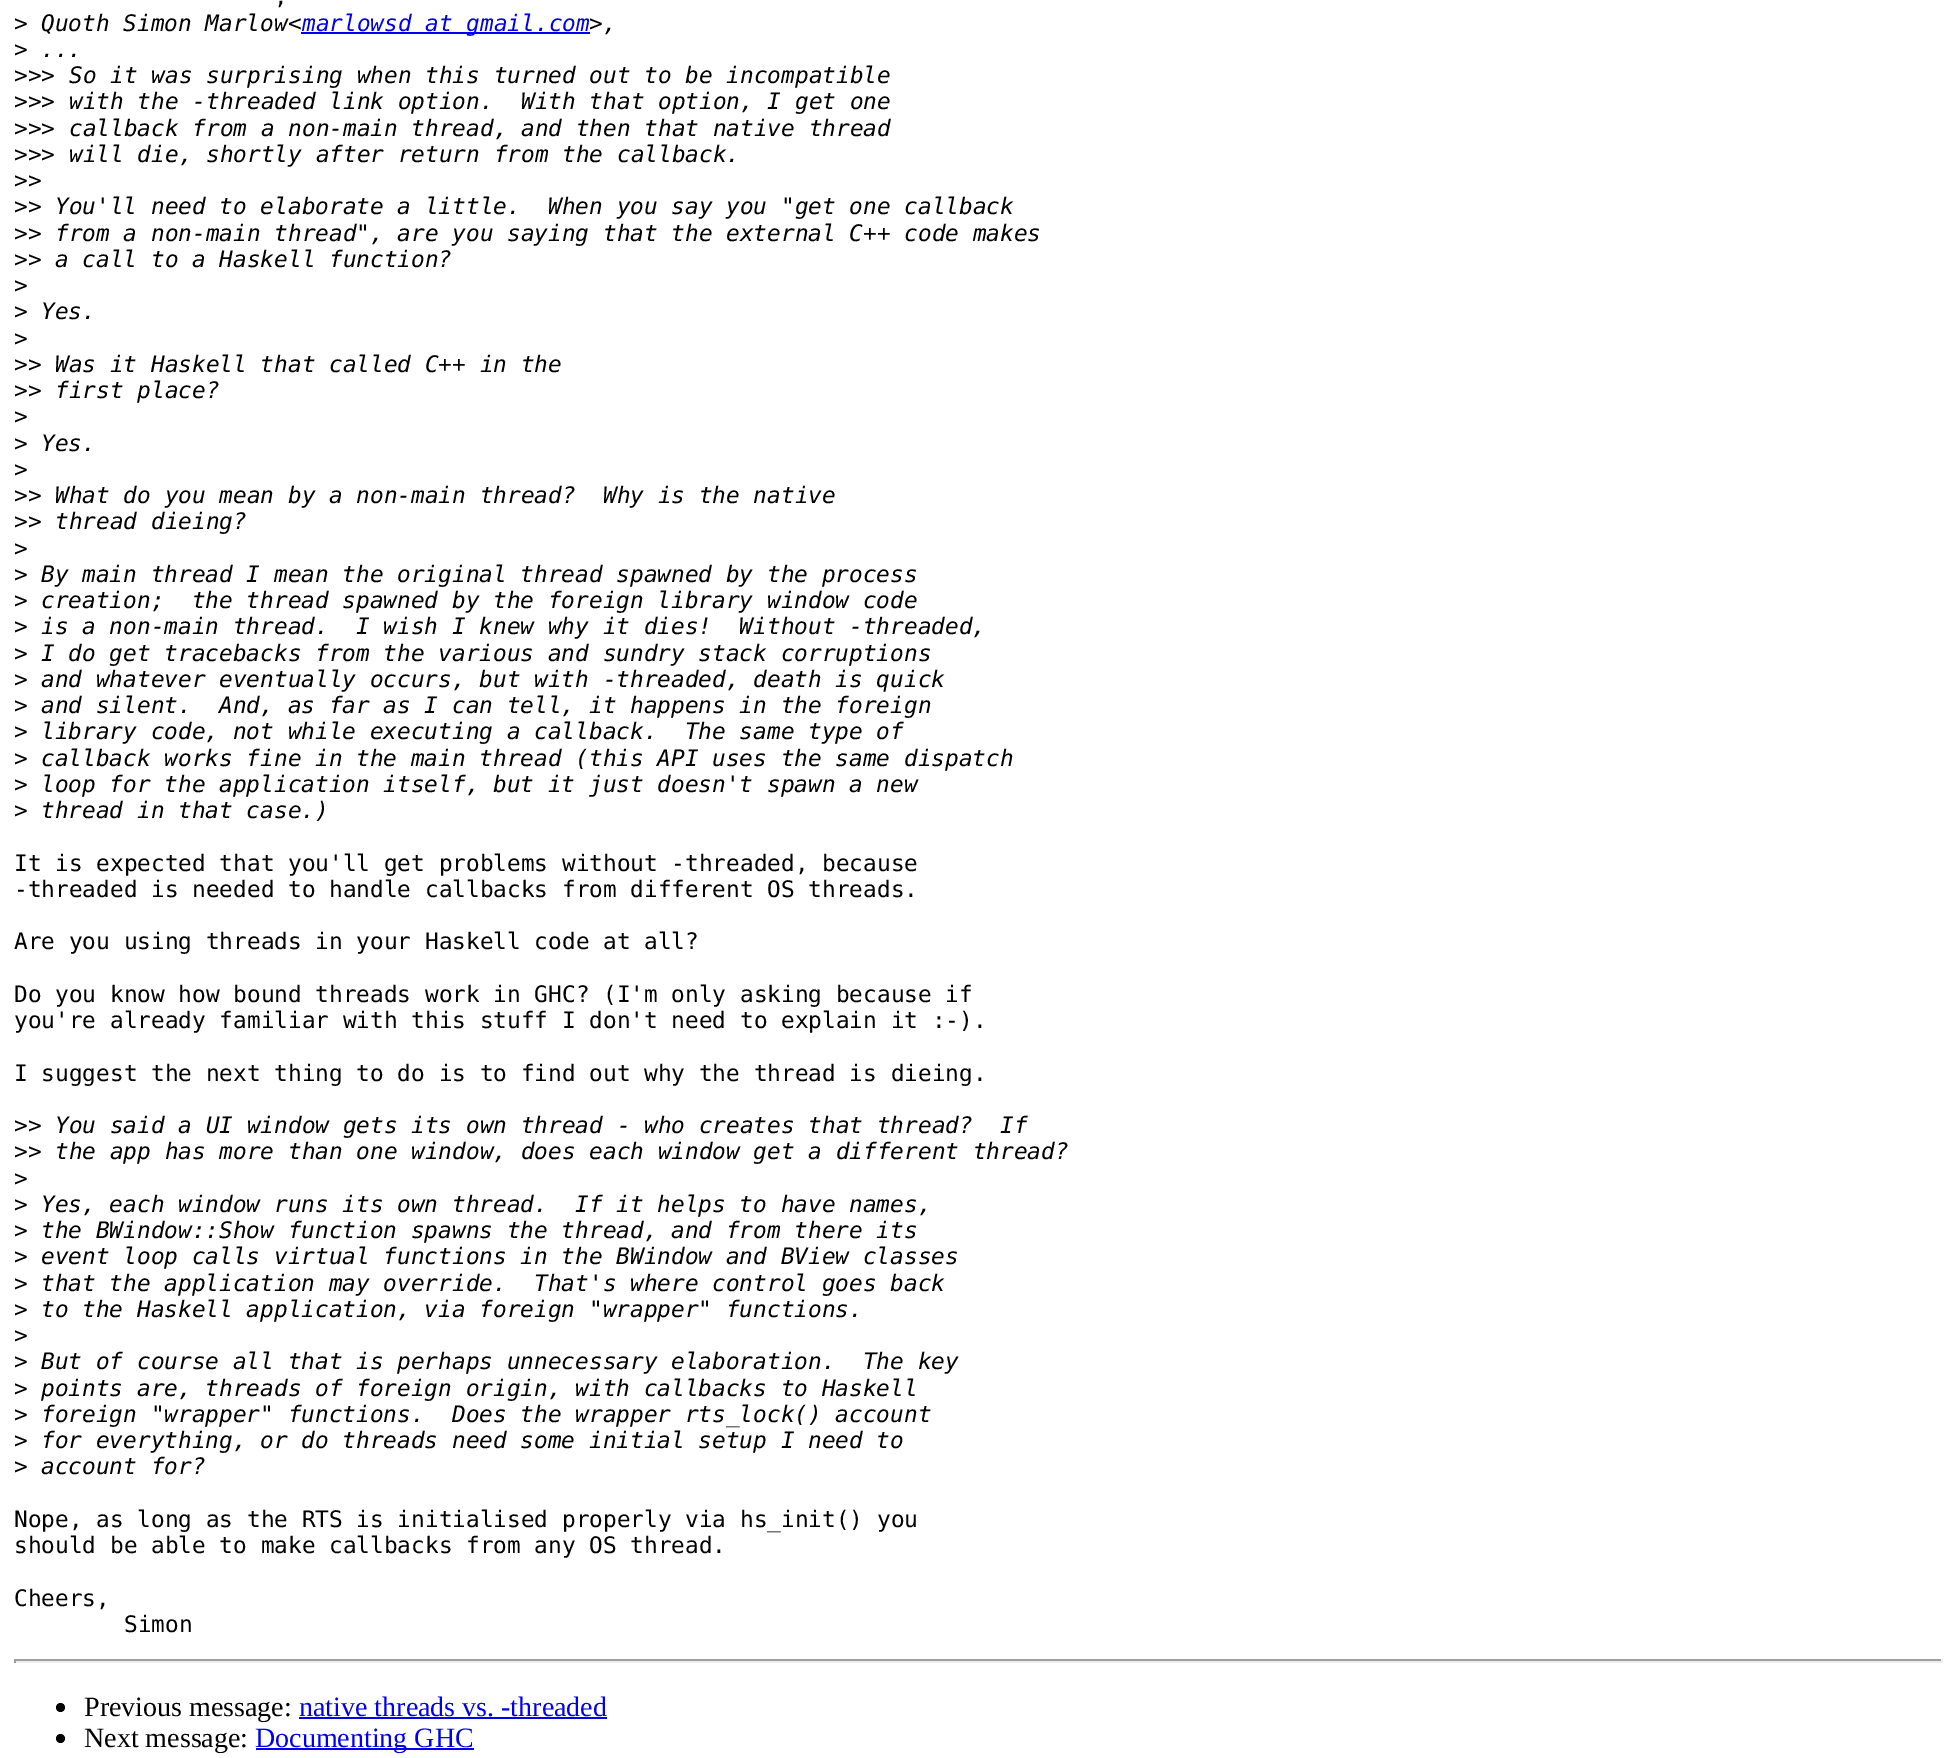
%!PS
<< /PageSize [1956 1758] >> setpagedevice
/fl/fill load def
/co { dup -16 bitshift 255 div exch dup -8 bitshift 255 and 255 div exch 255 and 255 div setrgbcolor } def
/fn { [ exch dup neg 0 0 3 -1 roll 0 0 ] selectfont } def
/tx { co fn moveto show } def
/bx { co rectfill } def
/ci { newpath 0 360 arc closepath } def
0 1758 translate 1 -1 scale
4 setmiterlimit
0 0 1956 1758 16#FFFFFF bx
301 32 289 2 16#0000EE bx
14 1659 1929 2 16#9F9F9F bx
1941 1659 2 4 16#EEEEEE bx
14 1661 1929 2 16#EEEEEE bx
14 1659 2 4 16#9F9F9F bx
16#000000 co
60.5 1707.5 4.5 ci fl
299 1717 308 2 16#0000EE bx
16#000000 co
60.5 1738.5 4.5 ci fl
256 1748 218 2 16#0000EE bx
(,) 274 4 /DejaVuSansMono-Regular 22.75 16#000000 tx
(>) 14 31 /DejaVuSansMono-Regular 22.75 16#000000 tx
(Quoth Simon Marlow<) 41 31 /DejaVuSansMono-Italic 22.75 16#000000 tx
(marlowsd at gmail.com) 302 31 /DejaVuSansMono-Italic 22.75 16#0000EE tx
(>,) 589 31 /DejaVuSansMono-Italic 22.75 16#000000 tx
(>) 14 57 /DejaVuSansMono-Regular 22.75 16#000000 tx
(...) 41 57 /DejaVuSansMono-Italic 22.75 16#000000 tx
(>>>) 14 83 /DejaVuSansMono-Regular 22.75 16#000000 tx
(So it was surprising when this turned out to be incompatible) 69 83 /DejaVuSansMono-Italic 22.75 16#000000 tx
(>>>) 14 109 /DejaVuSansMono-Regular 22.75 16#000000 tx
(with the -threaded link option.  With that option, I get one) 69 109 /DejaVuSansMono-Italic 22.75 16#000000 tx
(>>>) 14 136 /DejaVuSansMono-Regular 22.75 16#000000 tx
(callback from a non-main thread, and then that native thread) 69 136 /DejaVuSansMono-Italic 22.75 16#000000 tx
(>>>) 14 162 /DejaVuSansMono-Regular 22.75 16#000000 tx
(will die, shortly after return from the callback.) 69 162 /DejaVuSansMono-Italic 22.75 16#000000 tx
(>>) 14 188 /DejaVuSansMono-Regular 22.75 16#000000 tx
(>>) 14 214 /DejaVuSansMono-Regular 22.75 16#000000 tx
(You'll need to elaborate a little.  When you say you "get one callback) 55 214 /DejaVuSansMono-Italic 22.75 16#000000 tx
(>>) 14 241 /DejaVuSansMono-Regular 22.75 16#000000 tx
(from a non-main thread", are you saying that the external C++ code makes) 55 241 /DejaVuSansMono-Italic 22.75 16#000000 tx
(>>) 14 267 /DejaVuSansMono-Regular 22.75 16#000000 tx
(a call to a Haskell function?) 55 267 /DejaVuSansMono-Italic 22.75 16#000000 tx
(>) 14 293 /DejaVuSansMono-Regular 22.75 16#000000 tx
(>) 14 319 /DejaVuSansMono-Regular 22.75 16#000000 tx
(Yes.) 41 319 /DejaVuSansMono-Italic 22.75 16#000000 tx
(>) 14 346 /DejaVuSansMono-Regular 22.75 16#000000 tx
(>>) 14 372 /DejaVuSansMono-Regular 22.75 16#000000 tx
(Was it Haskell that called C++ in the) 55 372 /DejaVuSansMono-Italic 22.75 16#000000 tx
(>>) 14 398 /DejaVuSansMono-Regular 22.75 16#000000 tx
(first place?) 55 398 /DejaVuSansMono-Italic 22.75 16#000000 tx
(>) 14 424 /DejaVuSansMono-Regular 22.75 16#000000 tx
(>) 14 451 /DejaVuSansMono-Regular 22.75 16#000000 tx
(Yes.) 41 451 /DejaVuSansMono-Italic 22.75 16#000000 tx
(>) 14 477 /DejaVuSansMono-Regular 22.75 16#000000 tx
(>>) 14 503 /DejaVuSansMono-Regular 22.75 16#000000 tx
(What do you mean by a non-main thread?  Why is the native) 55 503 /DejaVuSansMono-Italic 22.75 16#000000 tx
(>>) 14 529 /DejaVuSansMono-Regular 22.75 16#000000 tx
(thread dieing?) 55 529 /DejaVuSansMono-Italic 22.75 16#000000 tx
(>) 14 556 /DejaVuSansMono-Regular 22.75 16#000000 tx
(>) 14 582 /DejaVuSansMono-Regular 22.75 16#000000 tx
(By main thread I mean the original thread spawned by the process) 41 582 /DejaVuSansMono-Italic 22.75 16#000000 tx
(>) 14 608 /DejaVuSansMono-Regular 22.75 16#000000 tx
(creation;  the thread spawned by the foreign library window code) 41 608 /DejaVuSansMono-Italic 22.75 16#000000 tx
(>) 14 634 /DejaVuSansMono-Regular 22.75 16#000000 tx
(is a non-main thread.  I wish I knew why it dies!  Without -threaded,) 41 634 /DejaVuSansMono-Italic 22.75 16#000000 tx
(>) 14 661 /DejaVuSansMono-Regular 22.75 16#000000 tx
(I do get tracebacks from the various and sundry stack corruptions) 41 661 /DejaVuSansMono-Italic 22.75 16#000000 tx
(>) 14 687 /DejaVuSansMono-Regular 22.75 16#000000 tx
(and whatever eventually occurs, but with -threaded, death is quick) 41 687 /DejaVuSansMono-Italic 22.75 16#000000 tx
(>) 14 713 /DejaVuSansMono-Regular 22.75 16#000000 tx
(and silent.  And, as far as I can tell, it happens in the foreign) 41 713 /DejaVuSansMono-Italic 22.75 16#000000 tx
(>) 14 739 /DejaVuSansMono-Regular 22.75 16#000000 tx
(library code, not while executing a callback.  The same type of) 41 739 /DejaVuSansMono-Italic 22.75 16#000000 tx
(>) 14 766 /DejaVuSansMono-Regular 22.75 16#000000 tx
(callback works fine in the main thread \(this API uses the same dispatch) 41 766 /DejaVuSansMono-Italic 22.75 16#000000 tx
(>) 14 792 /DejaVuSansMono-Regular 22.75 16#000000 tx
(loop for the application itself, but it just doesn't spawn a new) 41 792 /DejaVuSansMono-Italic 22.75 16#000000 tx
(>) 14 818 /DejaVuSansMono-Regular 22.75 16#000000 tx
(thread in that case.\)) 41 818 /DejaVuSansMono-Italic 22.75 16#000000 tx
(It is expected that you'll get problems without -threaded, because) 14 871 /DejaVuSansMono-Regular 22.75 16#000000 tx
(-threaded is needed to handle callbacks from different OS threads.) 14 897 /DejaVuSansMono-Regular 22.75 16#000000 tx
(Are you using threads in your Haskell code at all?) 14 949 /DejaVuSansMono-Regular 22.75 16#000000 tx
(Do you know how bound threads work in GHC? \(I'm only asking because if) 14 1002 /DejaVuSansMono-Regular 22.75 16#000000 tx
(you're already familiar with this stuff I don't need to explain it :-\).) 14 1028 /DejaVuSansMono-Regular 22.75 16#000000 tx
(I suggest the next thing to do is to find out why the thread is dieing.) 14 1081 /DejaVuSansMono-Regular 22.75 16#000000 tx
(>>) 14 1133 /DejaVuSansMono-Regular 22.75 16#000000 tx
(You said a UI window gets its own thread - who creates that thread?  If) 55 1133 /DejaVuSansMono-Italic 22.75 16#000000 tx
(>>) 14 1159 /DejaVuSansMono-Regular 22.75 16#000000 tx
(the app has more than one window, does each window get a different thread?) 55 1159 /DejaVuSansMono-Italic 22.75 16#000000 tx
(>) 14 1186 /DejaVuSansMono-Regular 22.75 16#000000 tx
(>) 14 1212 /DejaVuSansMono-Regular 22.75 16#000000 tx
(Yes, each window runs its own thread.  If it helps to have names,) 41 1212 /DejaVuSansMono-Italic 22.75 16#000000 tx
(>) 14 1238 /DejaVuSansMono-Regular 22.75 16#000000 tx
(the BWindow::Show function spawns the thread, and from there its) 41 1238 /DejaVuSansMono-Italic 22.75 16#000000 tx
(>) 14 1264 /DejaVuSansMono-Regular 22.75 16#000000 tx
(event loop calls virtual functions in the BWindow and BView classes) 41 1264 /DejaVuSansMono-Italic 22.75 16#000000 tx
(>) 14 1291 /DejaVuSansMono-Regular 22.75 16#000000 tx
(that the application may override.  That's where control goes back) 41 1291 /DejaVuSansMono-Italic 22.75 16#000000 tx
(>) 14 1317 /DejaVuSansMono-Regular 22.75 16#000000 tx
(to the Haskell application, via foreign "wrapper" functions.) 41 1317 /DejaVuSansMono-Italic 22.75 16#000000 tx
(>) 14 1343 /DejaVuSansMono-Regular 22.75 16#000000 tx
(>) 14 1369 /DejaVuSansMono-Regular 22.75 16#000000 tx
(But of course all that is perhaps unnecessary elaboration.  The key) 41 1369 /DejaVuSansMono-Italic 22.75 16#000000 tx
(>) 14 1396 /DejaVuSansMono-Regular 22.75 16#000000 tx
(points are, threads of foreign origin, with callbacks to Haskell) 41 1396 /DejaVuSansMono-Italic 22.75 16#000000 tx
(>) 14 1422 /DejaVuSansMono-Regular 22.75 16#000000 tx
(foreign "wrapper" functions.  Does the wrapper rts_lock\(\) account) 41 1422 /DejaVuSansMono-Italic 22.75 16#000000 tx
(>) 14 1448 /DejaVuSansMono-Regular 22.75 16#000000 tx
(for everything, or do threads need some initial setup I need to) 41 1448 /DejaVuSansMono-Italic 22.75 16#000000 tx
(>) 14 1474 /DejaVuSansMono-Regular 22.75 16#000000 tx
(account for?) 41 1474 /DejaVuSansMono-Italic 22.75 16#000000 tx
(Nope, as long as the RTS is initialised properly via hs_init\(\) you) 14 1527 /DejaVuSansMono-Regular 22.75 16#000000 tx
(should be able to make callbacks from any OS thread.) 14 1553 /DejaVuSansMono-Regular 22.75 16#000000 tx
(Cheers,) 14 1606 /DejaVuSansMono-Regular 22.75 16#000000 tx
(Simon) 124 1632 /DejaVuSansMono-Regular 22.75 16#000000 tx
(Previous message:) 84 1716 /LiberationSerif-Regular 28 16#000000 tx
(native threads vs. -threaded) 299 1716 /LiberationSerif-Regular 28 16#0000EE tx
(Next message:) 84 1747 /LiberationSerif-Regular 28 16#000000 tx
(Documenting GHC) 255 1747 /LiberationSerif-Regular 28 16#0000EE tx
showpage
